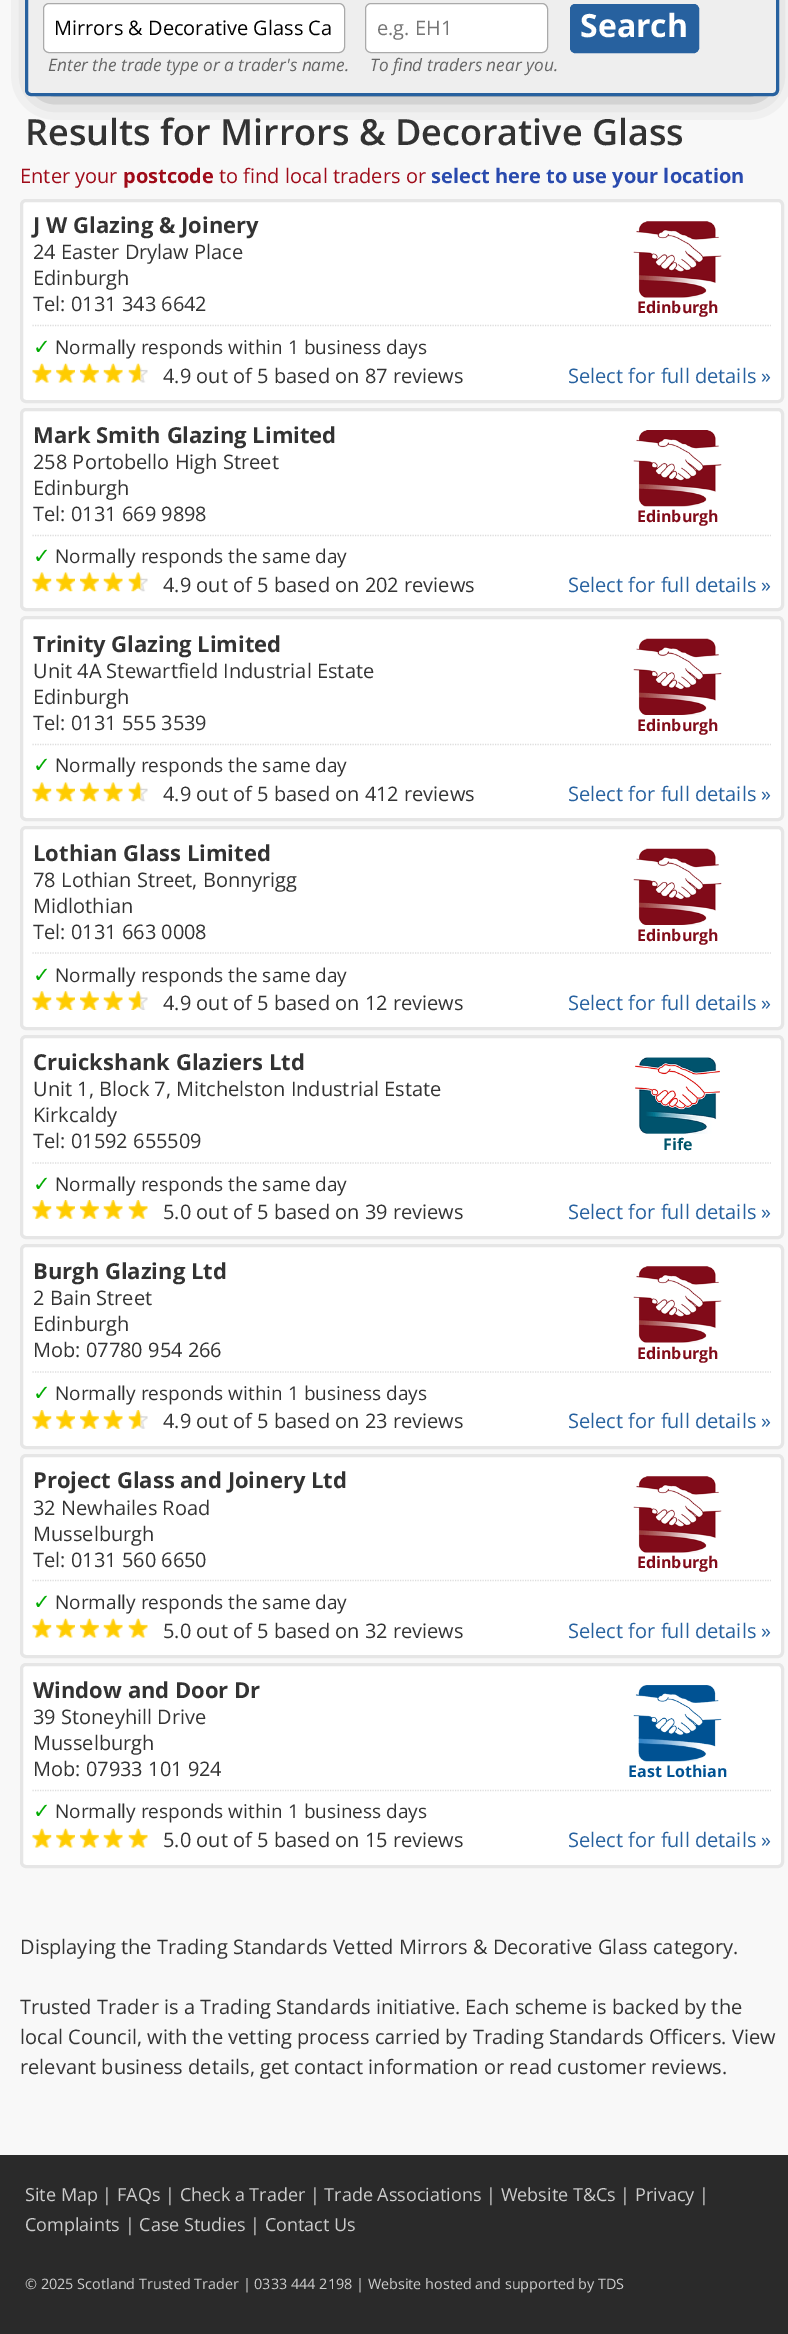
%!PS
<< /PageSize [788 2334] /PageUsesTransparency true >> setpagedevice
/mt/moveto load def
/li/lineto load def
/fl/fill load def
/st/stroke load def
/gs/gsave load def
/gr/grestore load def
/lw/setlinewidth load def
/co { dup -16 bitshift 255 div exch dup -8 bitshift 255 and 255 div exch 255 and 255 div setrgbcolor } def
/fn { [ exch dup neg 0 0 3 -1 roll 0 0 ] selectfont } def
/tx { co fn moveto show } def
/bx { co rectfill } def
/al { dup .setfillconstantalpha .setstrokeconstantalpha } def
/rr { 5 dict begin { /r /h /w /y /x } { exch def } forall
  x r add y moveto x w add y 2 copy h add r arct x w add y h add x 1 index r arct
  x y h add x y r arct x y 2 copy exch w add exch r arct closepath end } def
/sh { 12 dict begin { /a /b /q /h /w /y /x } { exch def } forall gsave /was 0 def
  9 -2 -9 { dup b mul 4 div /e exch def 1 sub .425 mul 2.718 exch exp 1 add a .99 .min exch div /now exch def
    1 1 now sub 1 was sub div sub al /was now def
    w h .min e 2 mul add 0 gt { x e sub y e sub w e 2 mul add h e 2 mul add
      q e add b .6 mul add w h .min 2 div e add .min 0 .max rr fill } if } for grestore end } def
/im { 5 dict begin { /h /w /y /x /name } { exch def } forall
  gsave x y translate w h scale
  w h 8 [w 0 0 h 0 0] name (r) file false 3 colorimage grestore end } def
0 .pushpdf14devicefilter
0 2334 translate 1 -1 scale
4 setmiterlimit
0 0 788 2334 16#F8F8F8 bx
16#000000 co
46 -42 712 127 0 15.5 1 sh
16#EEEEEE co
26.5 -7.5 751 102 4.5 rr gs fl gr
16#27619F co
3 lw
st
16#FFFFFF co
43.5 3.5 301 49 5.5 rr gs fl gr
16#AAAAAA co
1 lw
st
16#FFFFFF co
365.5 3.5 182 49 5.5 rr gs fl gr
16#AAAAAA co
st
16#27619F co
570.5 4.5 128 48 4.5 rr gs fl gr
st
16#FFFFFF co
21.5 200.5 761 201 4.5 rr gs fl gr
16#E6E6E6 co
3 lw
st
(media/1.raw) 633 221 89 77 im
16#DDDDDD co
1.2 lw
[1.25 1.25] 0 setdash
32.5 325.5 mt 771 325.5 li st
(media/2.raw) 32 363 20 20 im
(media/3.raw) 56 363 19 20 im
(media/4.raw) 80 363 19 20 im
(media/5.raw) 103 363 20 20 im
(media/6.raw) 128 363 20 20 im
16#FFFFFF co
21.5 409.5 761 200 4.5 rr gs fl gr
16#E6E6E6 co
3 lw
[] 0 setdash
st
(media/7.raw) 633 430 89 77 im
16#DDDDDD co
1.2 lw
[1.25 1.25] 0 setdash
32.5 535.5 mt 771 535.5 li st
(media/8.raw) 32 572 20 20 im
(media/9.raw) 56 572 19 20 im
(media/10.raw) 80 572 19 20 im
(media/11.raw) 103 572 20 20 im
(media/12.raw) 128 572 20 20 im
16#FFFFFF co
21.5 617.5 761 202 4.5 rr gs fl gr
16#E6E6E6 co
3 lw
[] 0 setdash
st
(media/13.raw) 633 638 89 77 im
16#DDDDDD co
1.2 lw
[1.25 1.25] 0 setdash
32.5 744.5 mt 771 744.5 li st
(media/8.raw) 32 782 20 20 im
(media/9.raw) 56 782 19 20 im
(media/10.raw) 80 782 19 20 im
(media/11.raw) 103 782 20 20 im
(media/12.raw) 128 782 20 20 im
16#FFFFFF co
21.5 827.5 761 201 4.5 rr gs fl gr
16#E6E6E6 co
3 lw
[] 0 setdash
st
(media/14.raw) 633 848 89 77 im
16#DDDDDD co
1.2 lw
[1.25 1.25] 0 setdash
32.5 953 mt 771 953 li st
(media/15.raw) 32 991 20 19 im
(media/16.raw) 56 991 19 19 im
(media/17.raw) 80 991 19 19 im
(media/18.raw) 103 991 20 19 im
(media/19.raw) 128 991 20 19 im
16#FFFFFF co
21.5 1036.5 761 201 4.5 rr gs fl gr
16#E6E6E6 co
3 lw
[] 0 setdash
st
(media/20.raw) 635 1057 85 77 im
16#DDDDDD co
1.2 lw
[1.25 1.25] 0 setdash
32.5 1163 mt 771 1163 li st
(media/21.raw) 32 1200 20 19 im
(media/22.raw) 56 1200 19 19 im
(media/23.raw) 80 1200 19 19 im
(media/24.raw) 103 1200 20 19 im
(media/24.raw) 128 1200 20 19 im
16#FFFFFF co
21.5 1245.5 761 202 4.5 rr gs fl gr
16#E6E6E6 co
3 lw
[] 0 setdash
st
(media/25.raw) 633 1266 89 77 im
16#DDDDDD co
1.2 lw
[1.25 1.25] 0 setdash
32.5 1372 mt 771 1372 li st
(media/21.raw) 32 1410 20 19 im
(media/22.raw) 56 1410 19 19 im
(media/23.raw) 80 1410 19 19 im
(media/24.raw) 103 1410 20 19 im
(media/26.raw) 128 1410 20 19 im
16#FFFFFF co
21.5 1455.5 761 201 4.5 rr gs fl gr
16#E6E6E6 co
3 lw
[] 0 setdash
st
(media/1.raw) 633 1476 89 77 im
16#DDDDDD co
1.2 lw
[1.25 1.25] 0 setdash
32.5 1580.5 mt 771 1580.5 li st
(media/2.raw) 32 1618 20 20 im
(media/3.raw) 56 1618 19 20 im
(media/4.raw) 80 1618 19 20 im
(media/5.raw) 103 1618 20 20 im
(media/5.raw) 128 1618 20 20 im
16#FFFFFF co
21.5 1664.5 761 202 4.5 rr gs fl gr
16#E6E6E6 co
3 lw
[] 0 setdash
st
(media/27.raw) 633 1685 89 77 im
16#DDDDDD co
1.2 lw
[1.25 1.25] 0 setdash
32.5 1790.5 mt 771 1790.5 li st
(media/2.raw) 32 1828 20 20 im
(media/3.raw) 56 1828 19 20 im
(media/4.raw) 80 1828 19 20 im
(media/5.raw) 103 1828 20 20 im
(media/5.raw) 128 1828 20 20 im
0 2155 788 179 16#2A2A2A bx
(Mirrors & Decorative Glass Ca) 54 35 /OpenSans-Regular 20 16#000000 tx
(Enter the trade type or a trader's name.) 48 71 /OpenSans-Italic 17.25 16#666666 tx
(e.g. EH1) 377 35 /OpenSans-Regular 20 16#757575 tx
(To find traders near you.) 370 71 /OpenSans-Italic 17.25 16#666666 tx
(Search) 580 37 /OpenSans-Bold 32 16#FFFFFF tx
(Results for Mirrors & Decorative Glass) 25 145 /OpenSans-SemiBold 36 16#333333 tx
(Enter your) 20 183 /OpenSans-Regular 20 16#9F0B19 tx
(postcode) 123 183 /OpenSans-Bold 20 16#9F0B19 tx
(to find local traders or) 219 183 /OpenSans-Regular 20 16#9F0B19 tx
(select here to use your location) 431 183 /OpenSans-Bold 20 16#294AAE tx
(J W Glazing & Joinery) 33 233 /OpenSans-Bold 22 16#333333 tx
(24 Easter Drylaw Place) 33 259 /OpenSans-Regular 20 16#333333 tx
(Edinburgh) 33 285 /OpenSans-Regular 20 16#333333 tx
(Tel: 0131 343 6642) 33 311 /OpenSans-Regular 20 16#333333 tx
(Edinburgh) 637 313 /OpenSans-Bold 16 16#810B19 tx
(✓) 33 354 /DejaVuSans-Regular 21 16#00AA00 tx
(Normally responds within 1 business days) 55 354 /OpenSans-Regular 19 16#333333 tx
(4.9 out of 5 based on 87 reviews) 163 383 /OpenSans-Regular 20 16#333333 tx
(Select for full details ») 568 383 /OpenSans-Regular 20 16#27619F tx
(Mark Smith Glazing Limited) 33 443 /OpenSans-Bold 22 16#333333 tx
(258 Portobello High Street) 33 469 /OpenSans-Regular 20 16#333333 tx
(Edinburgh) 33 495 /OpenSans-Regular 20 16#333333 tx
(Tel: 0131 669 9898) 33 521 /OpenSans-Regular 20 16#333333 tx
(Edinburgh) 637 522 /OpenSans-Bold 16 16#810B19 tx
(✓) 33 563 /DejaVuSans-Regular 21 16#00AA00 tx
(Normally responds the same day) 55 563 /OpenSans-Regular 19 16#333333 tx
(4.9 out of 5 based on 202 reviews) 163 592 /OpenSans-Regular 20 16#333333 tx
(Select for full details ») 568 592 /OpenSans-Regular 20 16#27619F tx
(Trinity Glazing Limited) 33 652 /OpenSans-Bold 22 16#333333 tx
(Unit 4A Stewartfield Industrial Estate) 33 678 /OpenSans-Regular 20 16#333333 tx
(Edinburgh) 33 704 /OpenSans-Regular 20 16#333333 tx
(Tel: 0131 555 3539) 33 730 /OpenSans-Regular 20 16#333333 tx
(Edinburgh) 637 731 /OpenSans-Bold 16 16#810B19 tx
(✓) 33 772 /DejaVuSans-Regular 21 16#00AA00 tx
(Normally responds the same day) 55 772 /OpenSans-Regular 19 16#333333 tx
(4.9 out of 5 based on 412 reviews) 163 801 /OpenSans-Regular 20 16#333333 tx
(Select for full details ») 568 801 /OpenSans-Regular 20 16#27619F tx
(Lothian Glass Limited) 33 861 /OpenSans-Bold 22 16#333333 tx
(78 Lothian Street, Bonnyrigg) 33 887 /OpenSans-Regular 20 16#333333 tx
(Midlothian) 33 913 /OpenSans-Regular 20 16#333333 tx
(Tel: 0131 663 0008) 33 939 /OpenSans-Regular 20 16#333333 tx
(Edinburgh) 637 941 /OpenSans-Bold 16 16#810B19 tx
(✓) 33 982 /DejaVuSans-Regular 21 16#00AA00 tx
(Normally responds the same day) 55 982 /OpenSans-Regular 19 16#333333 tx
(4.9 out of 5 based on 12 reviews) 163 1010 /OpenSans-Regular 20 16#333333 tx
(Select for full details ») 568 1010 /OpenSans-Regular 20 16#27619F tx
(Cruickshank Glaziers Ltd) 33 1070 /OpenSans-Bold 22 16#333333 tx
(Unit 1, Block 7, Mitchelston Industrial Estate) 33 1096 /OpenSans-Regular 20 16#333333 tx
(Kirkcaldy) 33 1122 /OpenSans-Regular 20 16#333333 tx
(Tel: 01592 655509) 33 1148 /OpenSans-Regular 20 16#333333 tx
(Fife) 663 1150 /OpenSans-Bold 16 16#00546B tx
(✓) 33 1191 /DejaVuSans-Regular 21 16#00AA00 tx
(Normally responds the same day) 55 1191 /OpenSans-Regular 19 16#333333 tx
(5.0 out of 5 based on 39 reviews) 163 1219 /OpenSans-Regular 20 16#333333 tx
(Select for full details ») 568 1219 /OpenSans-Regular 20 16#27619F tx
(Burgh Glazing Ltd) 33 1279 /OpenSans-Bold 22 16#333333 tx
(2 Bain Street) 33 1305 /OpenSans-Regular 20 16#333333 tx
(Edinburgh) 33 1331 /OpenSans-Regular 20 16#333333 tx
(Mob: 07780 954 266) 33 1357 /OpenSans-Regular 20 16#333333 tx
(Edinburgh) 637 1359 /OpenSans-Bold 16 16#810B19 tx
(✓) 33 1400 /DejaVuSans-Regular 21 16#00AA00 tx
(Normally responds within 1 business days) 55 1400 /OpenSans-Regular 19 16#333333 tx
(4.9 out of 5 based on 23 reviews) 163 1428 /OpenSans-Regular 20 16#333333 tx
(Select for full details ») 568 1428 /OpenSans-Regular 20 16#27619F tx
(Project Glass and Joinery Ltd) 33 1488 /OpenSans-Bold 22 16#333333 tx
(32 Newhailes Road) 33 1515 /OpenSans-Regular 20 16#333333 tx
(Musselburgh) 33 1541 /OpenSans-Regular 20 16#333333 tx
(Tel: 0131 560 6650) 33 1567 /OpenSans-Regular 20 16#333333 tx
(Edinburgh) 637 1568 /OpenSans-Bold 16 16#810B19 tx
(✓) 33 1609 /DejaVuSans-Regular 21 16#00AA00 tx
(Normally responds the same day) 55 1609 /OpenSans-Regular 19 16#333333 tx
(5.0 out of 5 based on 32 reviews) 163 1638 /OpenSans-Regular 20 16#333333 tx
(Select for full details ») 568 1638 /OpenSans-Regular 20 16#27619F tx
(Window and Door Dr) 33 1698 /OpenSans-Bold 22 16#333333 tx
(39 Stoneyhill Drive) 33 1724 /OpenSans-Regular 20 16#333333 tx
(Musselburgh) 33 1750 /OpenSans-Regular 20 16#333333 tx
(Mob: 07933 101 924) 33 1776 /OpenSans-Regular 20 16#333333 tx
(East Lothian) 628 1777 /OpenSans-Bold 16 16#005293 tx
(✓) 33 1818 /DejaVuSans-Regular 21 16#00AA00 tx
(Normally responds within 1 business days) 55 1818 /OpenSans-Regular 19 16#333333 tx
(5.0 out of 5 based on 15 reviews) 163 1847 /OpenSans-Regular 20 16#333333 tx
(Select for full details ») 568 1847 /OpenSans-Regular 20 16#27619F tx
(Displaying the Trading Standards Vetted Mirrors & Decorative Glass category.) 20 1954 /OpenSans-Regular 20 16#333333 tx
(Trusted Trader is a Trading Standards initiative. Each scheme is backed by the) 20 2014 /OpenSans-Regular 20 16#333333 tx
(local Council, with the vetting process carried by Trading Standards Officers. View) 20 2044 /OpenSans-Regular 20 16#333333 tx
(relevant business details, get contact information or read customer reviews.) 20 2074 /OpenSans-Regular 20 16#333333 tx
(Site Map | FAQs | Check a Trader | Trade Associations | Website T&Cs | Privacy |) 25 2201 /OpenSans-Regular 18 16#CCCCCC tx
(Complaints | Case Studies | Contact Us) 25 2231 /OpenSans-Regular 18 16#CCCCCC tx
(© 2025 Scotland Trusted Trader | 0333 444 2198 | Website hosted and supported by TDS) 25 2289 /OpenSans-Regular 14.4 16#CCCCCC tx
.poppdf14devicefilter showpage
